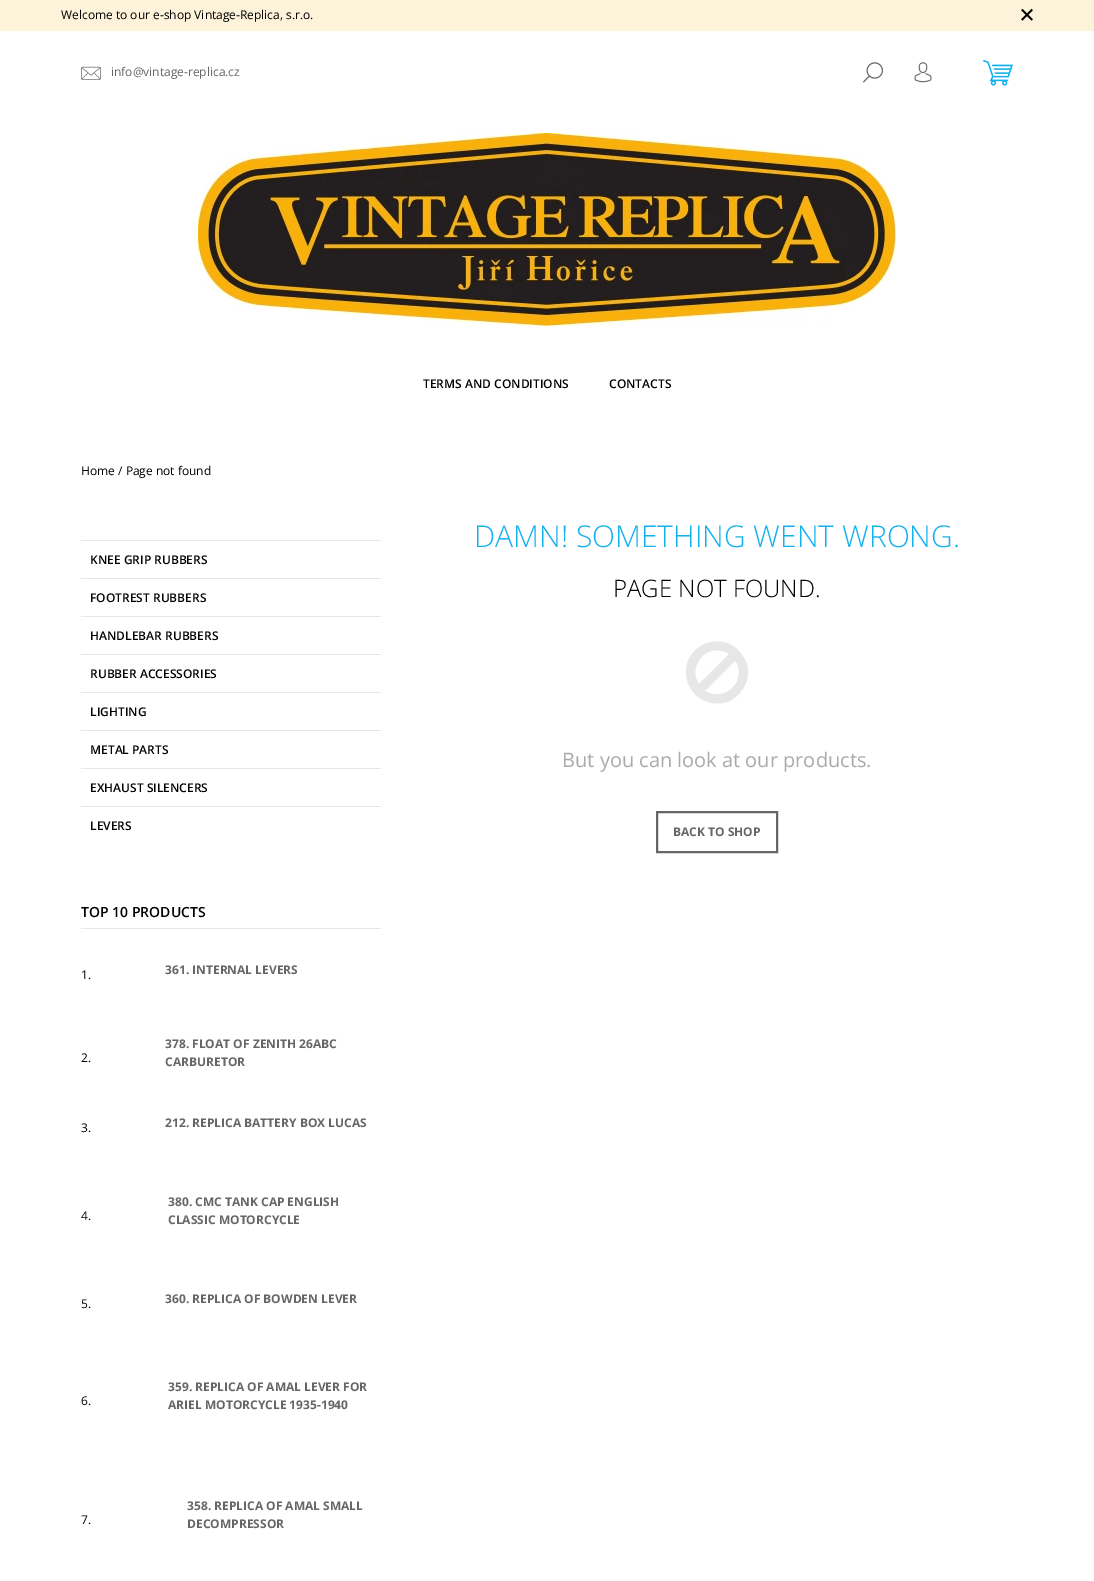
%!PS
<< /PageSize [1094 1581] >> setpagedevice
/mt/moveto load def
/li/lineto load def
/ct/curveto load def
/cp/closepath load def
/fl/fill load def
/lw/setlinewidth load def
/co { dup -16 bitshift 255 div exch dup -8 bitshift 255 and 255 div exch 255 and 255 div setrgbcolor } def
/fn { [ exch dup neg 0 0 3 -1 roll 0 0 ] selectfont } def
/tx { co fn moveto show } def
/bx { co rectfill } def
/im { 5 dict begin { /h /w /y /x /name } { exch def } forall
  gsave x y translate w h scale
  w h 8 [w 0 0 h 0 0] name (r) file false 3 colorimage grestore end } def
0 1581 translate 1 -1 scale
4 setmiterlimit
0 0 1094 1581 16#FFFFFF bx
0 0 1094 31 16#FDF3DA bx
(media/1.raw) 1021 8 12 13 im
(media/2.raw) 81 66 20 14 im
(media/3.raw) 863 62 20 21 im
(media/4.raw) 914 62 18 21 im
(media/5.raw) 983 60 30 26 im
(media/6.raw) 198 133 698 193 im
81 540 300 1 16#E7E7E7 bx
81 578 300 1 16#E7E7E7 bx
81 616 300 1 16#E7E7E7 bx
81 654 300 1 16#E7E7E7 bx
81 692 300 1 16#E7E7E7 bx
81 730 300 1 16#E7E7E7 bx
81 768 300 1 16#E7E7E7 bx
81 806 300 1 16#E7E7E7 bx
81 928 300 1 16#E7E7E7 bx
739 672 mt 739 668 738 664 735 661 ct 705 691 li 719 700 739 690 739 672 ct cp 699 684 mt 729 654 li 709 641 686 665 699 684 ct cp 748 672 mt 748 679 746 685 742 690 ct 726 715 686 703 686 672 ct 686 642 726 630 742 655 ct 746 660 748 666 748 672 ct cp fl
16#666666 co
2 lw
657 812 120 40 rectstroke
(Welcome to our e-shop Vintage-Replica, s.r.o.) 61 19 /OpenSans-Regular 12 16#000000 tx
(info@vintage-replica.cz) 111 76 /OpenSans-Regular 12 16#666666 tx
(TERMS AND CONDITIONS) 423 388 /OpenSans-SemiBold 12 16#000000 tx
(CONTACTS) 609 388 /OpenSans-SemiBold 12 16#000000 tx
(Home / Page not found) 81 475 /OpenSans-Regular 12 16#000000 tx
(KNEE GRIP RUBBERS) 90 564 /OpenSans-SemiBold 12 16#000000 tx
(FOOTREST RUBBERS) 90 602 /OpenSans-SemiBold 12 16#000000 tx
(HANDLEBAR RUBBERS) 90 640 /OpenSans-SemiBold 12 16#000000 tx
(RUBBER ACCESSORIES) 90 678 /OpenSans-SemiBold 12 16#000000 tx
(LIGHTING) 90 716 /OpenSans-SemiBold 12 16#000000 tx
(METAL PARTS) 90 754 /OpenSans-SemiBold 12 16#000000 tx
(EXHAUST SILENCERS) 90 792 /OpenSans-SemiBold 12 16#000000 tx
(LEVERS) 90 830 /OpenSans-SemiBold 12 16#000000 tx
(TOP 10 PRODUCTS) 81 917 /OpenSans-SemiBold 14 16#000000 tx
(1.) 81 979 /OpenSans-Regular 12 16#000000 tx
(361. INTERNAL LEVERS) 165 974 /OpenSans-Bold 12 16#666666 tx
(2.) 81 1062 /OpenSans-Regular 12 16#000000 tx
(378. FLOAT OF ZENITH 26ABC) 165 1048 /OpenSans-Bold 12 16#666666 tx
(CARBURETOR) 165 1066 /OpenSans-Bold 12 16#666666 tx
(3.) 81 1132 /OpenSans-Regular 12 16#000000 tx
(212. REPLICA BATTERY BOX LUCAS) 165 1127 /OpenSans-Bold 12 16#666666 tx
(4.) 81 1220 /OpenSans-Regular 12 16#000000 tx
(380. CMC TANK CAP ENGLISH) 168 1206 /OpenSans-Bold 12 16#666666 tx
(CLASSIC MOTORCYCLE) 168 1224 /OpenSans-Bold 12 16#666666 tx
(5.) 81 1308 /OpenSans-Regular 12 16#000000 tx
(360. REPLICA OF BOWDEN LEVER) 165 1303 /OpenSans-Bold 12 16#666666 tx
(6.) 81 1405 /OpenSans-Regular 12 16#000000 tx
(359. REPLICA OF AMAL LEVER FOR) 168 1391 /OpenSans-Bold 12 16#666666 tx
(ARIEL MOTORCYCLE 1935-1940) 168 1409 /OpenSans-Bold 12 16#666666 tx
(7.) 81 1524 /OpenSans-Regular 12 16#000000 tx
(358. REPLICA OF AMAL SMALL) 187 1510 /OpenSans-Bold 12 16#666666 tx
(DECOMPRESSOR) 187 1528 /OpenSans-Bold 12 16#666666 tx
(DAMN! SOMETHING WENT WRONG.) 474 547 /OpenSans-Light 30 16#14B1EF tx
(PAGE NOT FOUND.) 613 597 /OpenSans-Light 24 16#000000 tx
(But you can look at our products.) 562 767 /OpenSans-Regular 20 16#AAAAAA tx
(BACK TO SHOP) 673 836 /OpenSans-Bold 12 16#666666 tx
showpage
